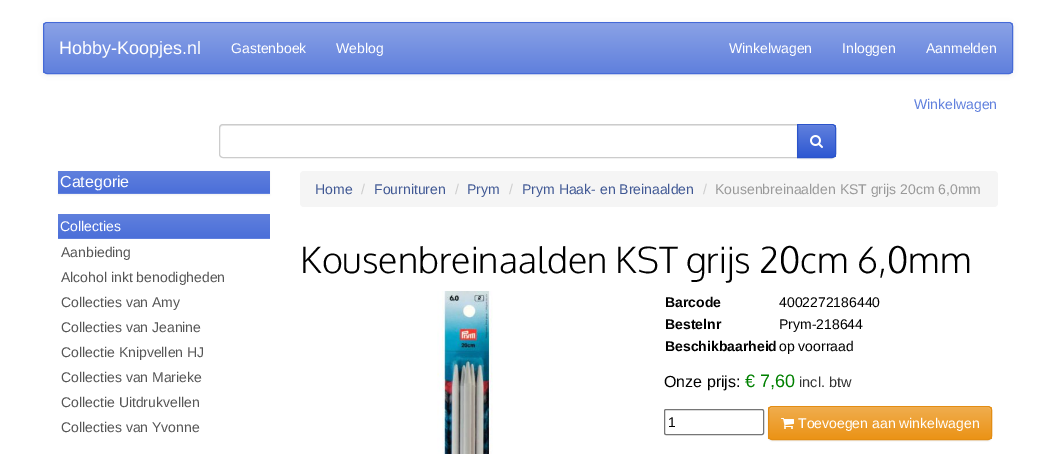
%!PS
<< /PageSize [1055 454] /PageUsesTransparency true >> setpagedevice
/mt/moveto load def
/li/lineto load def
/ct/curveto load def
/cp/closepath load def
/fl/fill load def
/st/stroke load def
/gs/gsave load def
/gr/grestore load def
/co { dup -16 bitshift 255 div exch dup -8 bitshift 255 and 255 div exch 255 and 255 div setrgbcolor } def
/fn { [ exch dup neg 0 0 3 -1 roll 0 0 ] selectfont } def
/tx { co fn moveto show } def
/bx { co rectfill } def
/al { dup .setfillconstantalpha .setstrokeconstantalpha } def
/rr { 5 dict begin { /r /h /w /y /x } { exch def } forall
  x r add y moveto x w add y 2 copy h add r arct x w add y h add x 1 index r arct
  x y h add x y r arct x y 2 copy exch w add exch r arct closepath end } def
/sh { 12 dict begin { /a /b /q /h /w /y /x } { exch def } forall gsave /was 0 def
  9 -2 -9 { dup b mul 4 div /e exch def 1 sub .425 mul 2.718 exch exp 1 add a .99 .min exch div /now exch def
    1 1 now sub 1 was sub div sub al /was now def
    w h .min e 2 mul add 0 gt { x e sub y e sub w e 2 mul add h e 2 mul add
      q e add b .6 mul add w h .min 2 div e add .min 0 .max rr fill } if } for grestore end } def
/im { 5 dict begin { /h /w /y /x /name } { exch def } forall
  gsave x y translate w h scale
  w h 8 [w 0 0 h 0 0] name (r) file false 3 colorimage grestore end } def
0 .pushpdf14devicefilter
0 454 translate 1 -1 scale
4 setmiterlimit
0 0 1055 454 16#FFFFFF bx
16#000000 co
43 23 970 52 4 2.5 .07 sh
gs
43 22 970 52 4 rr clip newpath
gs 43 23 mt 1013 23 li 1013 73 li 43 73 li cp clip newpath
<< /ShadingType 2 /ColorSpace /DeviceRGB /Coords [528 23 528 73] /Extend [true true] /Function << /FunctionType 2 /Domain [0 1] /C0 [.541 .635 .902] /C1 [.376 .502 .867] /N 1 >> >> shfill gr
gr
16#9CB0EA co
47 24 mt 1009 24 li 1011 24 1012 25 1012 27 ct 1012 25 1011 23 1009 23 ct 47 23 li 45 23 44 25 44 27 ct 44 25 45 24 47 24 ct cp fl
16#456AD7 co
43.5 22.5 969 51 3.5 rr st
16#ECECEC co
223 126 mt 797 126 li 797 125 li 223 125 li 221 125 220 126 220 128 ct 220 129 li 220 127 221 126 223 126 ct cp fl
16#CCCCCC co
223 124.5 mt 797.5 124.5 li 797.5 157.5 li 223 157.5 li 221 157.5 219.5 156 219.5 154 ct 219.5 128 li 219.5 126 221 124.5 223 124.5 ct cp st
16#000000 co
797 125 39 34 4 .5 .07 sh
gs
797 124 mt 832 124 li 834 124 836 126 836 128 ct 836 154 li 836 156 834 158 832 158 ct 797 158 li cp clip newpath
gs 798 125 mt 836 125 li 836 157 li 798 157 li cp clip newpath
<< /ShadingType 2 /ColorSpace /DeviceRGB /Coords [817 125 817 157] /Extend [true true] /Function << /FunctionType 2 /Domain [0 1] /C0 [.376 .502 .867] /C1 [.18 .345 .824] /N 1 >> >> shfill gr
gr
16#7792E2 co
798 126 mt 832 126 li 834 126 835 127 835 129 ct 835 128 li 835 126.5 833.5 125 832 125 ct 798 125 li cp fl
16#2B54CA co
797.5 124.5 mt 832 124.5 li 834 124.5 835.5 126 835.5 128 ct 835.5 154 li 835.5 156 834 157.5 832 157.5 ct 797.5 157.5 li cp st
(media/1.raw) 810 135 13 13 im
16#000000 co
58 172 212 23 0 1 .05 sh
58 193 212 1 16#6080DD bx
gs 58 171 mt 270 171 li 270 193 li 58 193 li cp clip newpath
<< /ShadingType 2 /ColorSpace /DeviceRGB /Coords [164 171 164 193] /Extend [true true] /Function << /FunctionType 2 /Domain [0 1] /C0 [.376 .502 .867] /C1 [.294 .435 .851] /N 1 >> >> shfill gr
58 238 212 1 16#6080DD bx
gs 58 214 mt 270 214 li 270 238 li 58 238 li cp clip newpath
<< /ShadingType 2 /ColorSpace /DeviceRGB /Coords [164 214 164 238] /Extend [true true] /Function << /FunctionType 2 /Domain [0 1] /C0 [.376 .502 .867] /C1 [.294 .435 .851] /N 1 >> >> shfill gr
16#F5F5F5 co
300 171 698 36 4 rr fl
(media/2.raw) 437 291 56 163 im
16#767676 co
664.5 409.5 99 25 1.5 rr st
16#000000 co
768 407 224 34 4 .5 .07 sh
gs
768 406 224 34 4 rr clip newpath
gs 768 407 mt 992 407 li 992 439 li 768 439 li cp clip newpath
<< /ShadingType 2 /ColorSpace /DeviceRGB /Coords [880 407 880 439] /Extend [true true] /Function << /FunctionType 2 /Domain [0 1] /C0 [.941 .678 .306] /C1 [.922 .576 .086] /N 1 >> >> shfill gr
gr
16#F2B968 co
772 408 mt 988 408 li 990 408 991 409 991 411 ct 991 410 li 991 408 990 407 988 407 ct 772 407 li 770 407 769 408 769 410 ct 769 411 li 769 409 770 408 772 408 ct cp fl
16#E38D13 co
768.5 406.5 223 33 3.5 rr st
(media/3.raw) 781 418 13 11 im
(Hobby-Koopjes.nl) 59 54 /LiberationSans-Regular 18 16#FFFFFF tx
(Gastenboek) 231 53 /LiberationSans-Regular 14 16#FFFFFF tx
(Weblog) 336 53 /LiberationSans-Regular 14 16#FFFFFF tx
(Winkelwagen) 729 53 /LiberationSans-Regular 14 16#FFFFFF tx
(Inloggen) 842 53 /LiberationSans-Regular 14 16#FFFFFF tx
(Aanmelden) 926 53 /LiberationSans-Regular 14 16#FFFFFF tx
(Winkelwagen) 914 109 /LiberationSans-Regular 14 16#6080DD tx
(Categorie) 60 187 /LiberationSans-Regular 16 16#FFFFFF tx
(Collecties) 60 231 /LiberationSans-Regular 14 16#FFFFFF tx
(Aanbieding) 61 257 /LiberationSans-Regular 14 16#555555 tx
(Alcohol inkt benodigheden) 61 282 /LiberationSans-Regular 14 16#555555 tx
(Collecties van Amy) 61 307 /LiberationSans-Regular 14 16#555555 tx
(Collecties van Jeanine) 61 332 /LiberationSans-Regular 14 16#555555 tx
(Collectie Knipvellen HJ) 61 357 /LiberationSans-Regular 14 16#555555 tx
(Collecties van Marieke) 61 382 /LiberationSans-Regular 14 16#555555 tx
(Collectie Uitdrukvellen) 61 407 /LiberationSans-Regular 14 16#555555 tx
(Collecties van Yvonne) 61 432 /LiberationSans-Regular 14 16#555555 tx
(Home) 315 194 /LiberationSans-Regular 14 16#405894 tx
(/) 361 194 /LiberationSans-Regular 14 16#CCCCCC tx
(Fournituren) 374 194 /LiberationSans-Regular 14 16#405894 tx
(/) 455 194 /LiberationSans-Regular 14 16#CCCCCC tx
(Prym) 467 194 /LiberationSans-Regular 14 16#405894 tx
(/) 509 194 /LiberationSans-Regular 14 16#CCCCCC tx
(Prym Haak- en Breinaalden) 522 194 /LiberationSans-Regular 14 16#405894 tx
(/) 703 194 /LiberationSans-Regular 14 16#CCCCCC tx
(Kousenbreinaalden KST grijs 20cm 6,0mm) 715 194 /LiberationSans-Regular 14 16#999999 tx
(Kousenbreinaalden KST grijs 20cm 6,0mm) 300 273 /Oxygen-Light 36 16#000000 tx
(Barcode) 665 307 /LiberationSans-Bold 14 16#000000 tx
(4002272186440) 779 307 /LiberationSans-Regular 14 16#000000 tx
(Bestelnr) 665 329 /LiberationSans-Bold 14 16#000000 tx
(Prym-218644) 779 329 /LiberationSans-Regular 14 16#000000 tx
(Beschikbaarheid) 665 351 /LiberationSans-Bold 14 16#000000 tx
(op voorraad) 779 351 /LiberationSans-Regular 14 16#000000 tx
(Onze prijs:) 664 387 /LiberationSans-Regular 16 16#000000 tx
(€ 7,60) 745 387 /LiberationSans-Regular 18 16#008000 tx
(incl. btw) 799 387 /LiberationSans-Regular 14.5 16#333333 tx
(1) 668 427 /LiberationSans-Regular 14 16#000000 tx
(Toevoegen aan winkelwagen) 798 428 /LiberationSans-Regular 14 16#FFFFFF tx
.poppdf14devicefilter showpage
